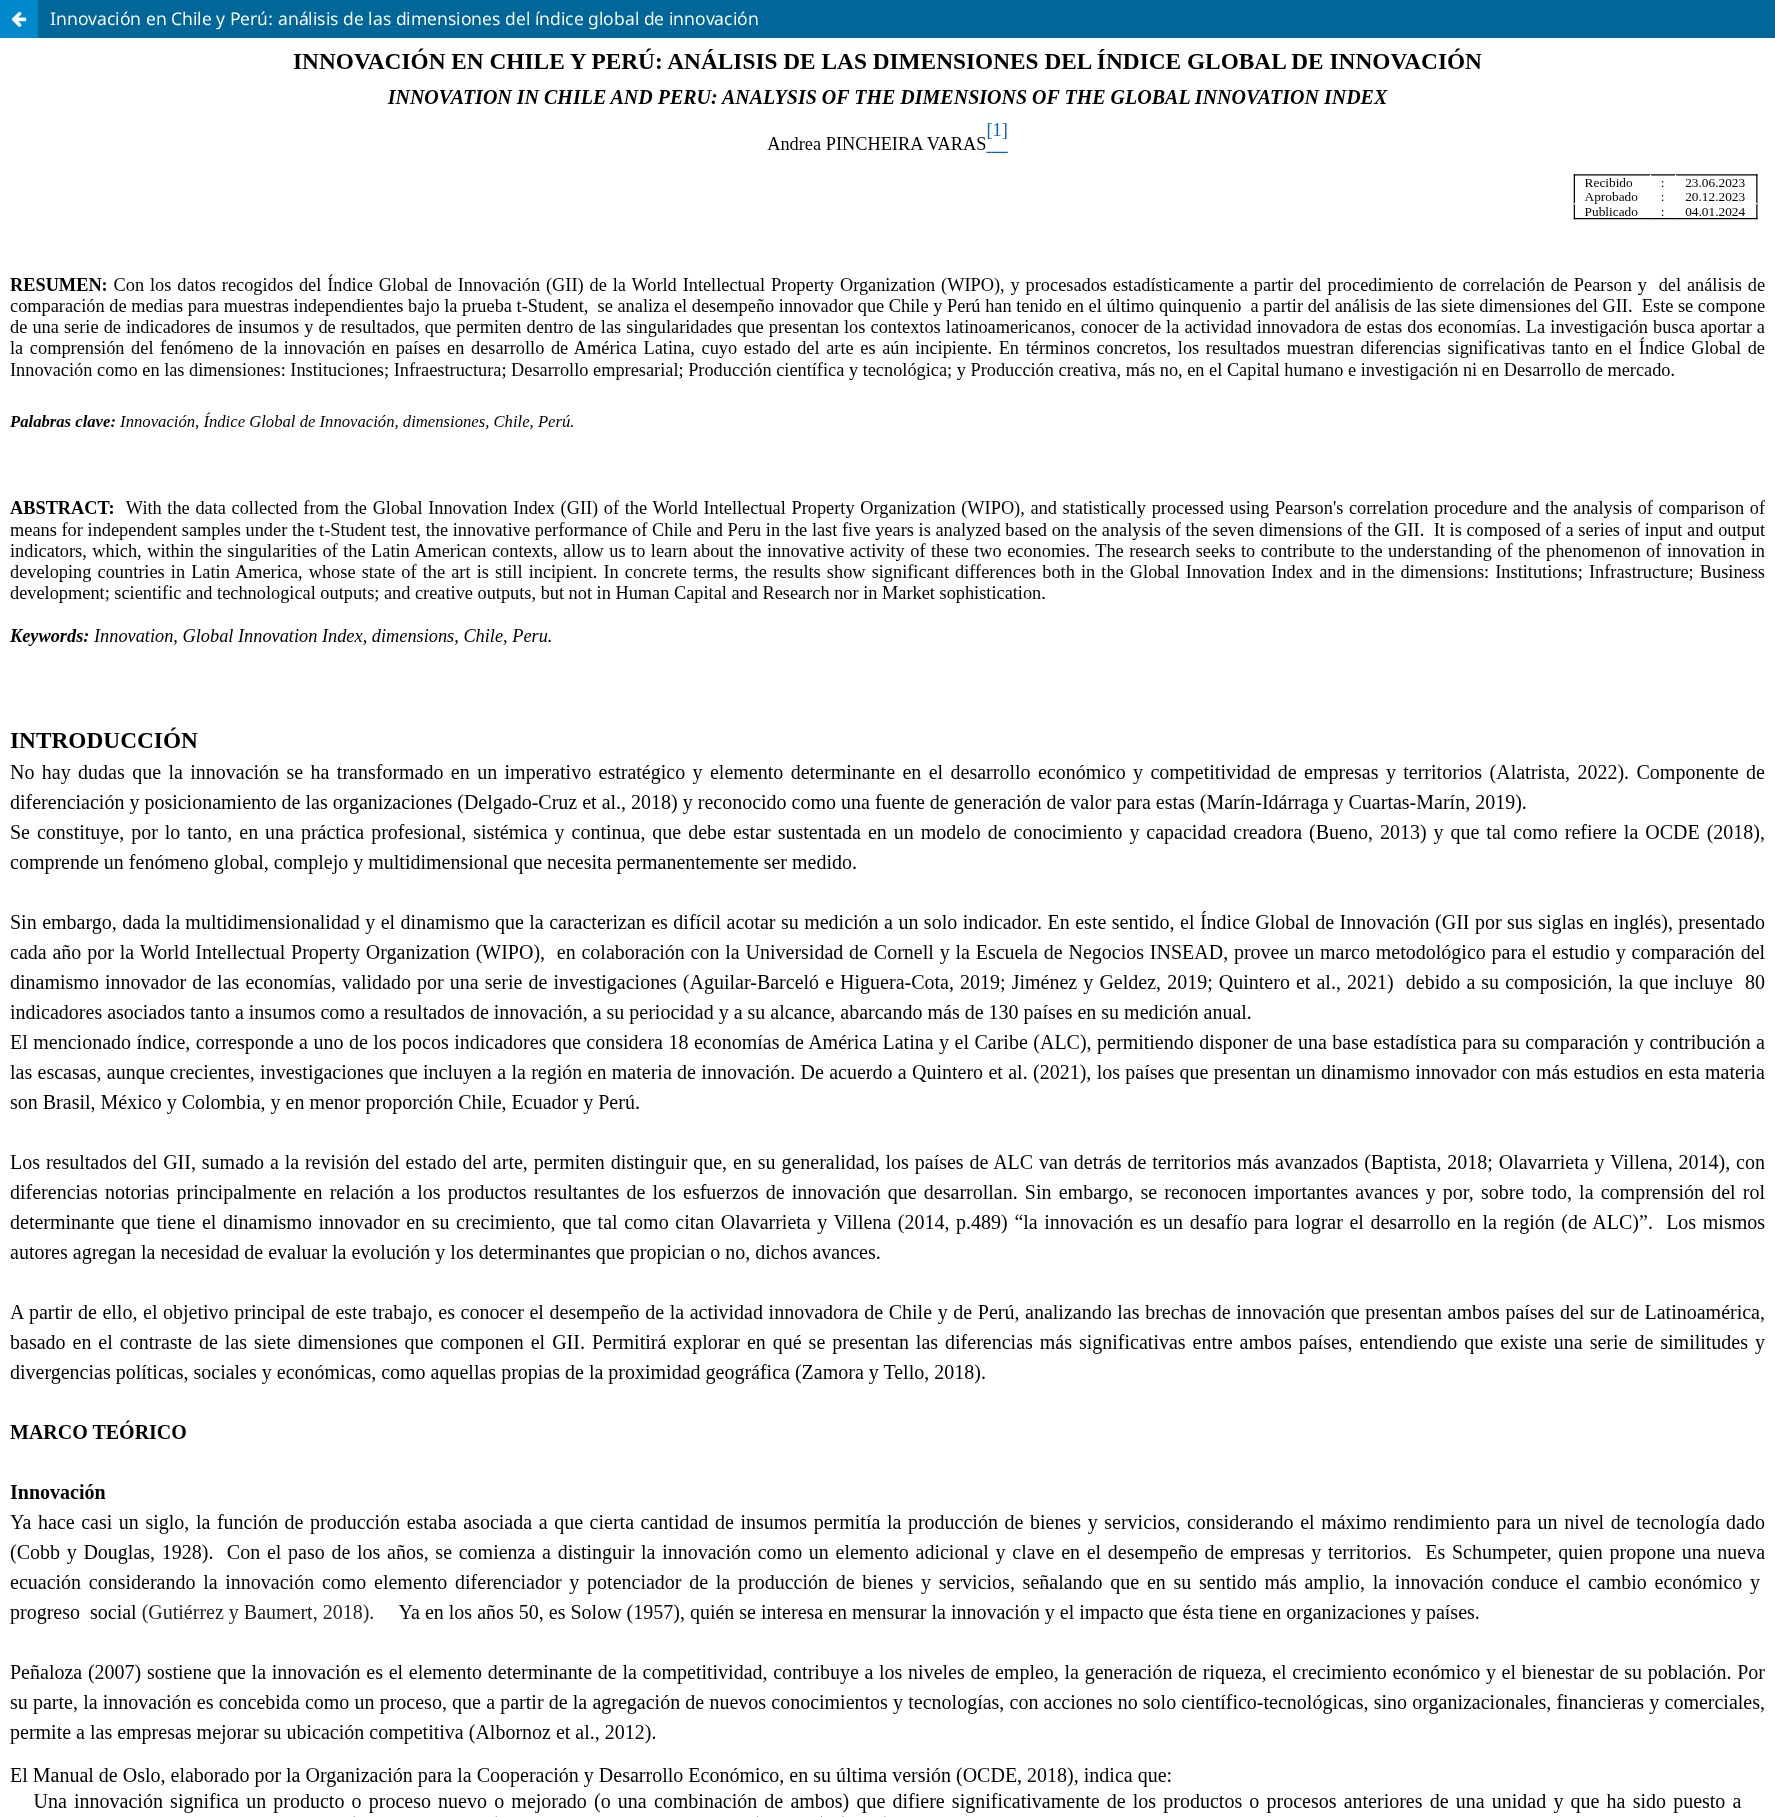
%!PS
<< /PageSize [1775 1817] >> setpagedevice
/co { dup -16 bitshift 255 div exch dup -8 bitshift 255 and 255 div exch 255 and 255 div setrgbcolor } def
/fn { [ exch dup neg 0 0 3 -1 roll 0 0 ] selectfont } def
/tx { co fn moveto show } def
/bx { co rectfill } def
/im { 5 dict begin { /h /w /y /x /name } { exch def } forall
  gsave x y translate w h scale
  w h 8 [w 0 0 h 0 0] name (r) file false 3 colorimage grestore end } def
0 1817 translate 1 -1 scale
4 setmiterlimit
0 0 1775 1817 16#FFFFFF bx
38 0 1737 38 16#006798 bx
0 0 38 38 16#008ACB bx
(media/1.raw) 11 11 16 16 im
(media/2.raw) 9 48 1757 1769 im
(Innovación en Chile y Perú: análisis de las dimensiones del índice global de innovación) 50 25 /NotoSans-Regular 17.5 16#FFFFFF tx
showpage
